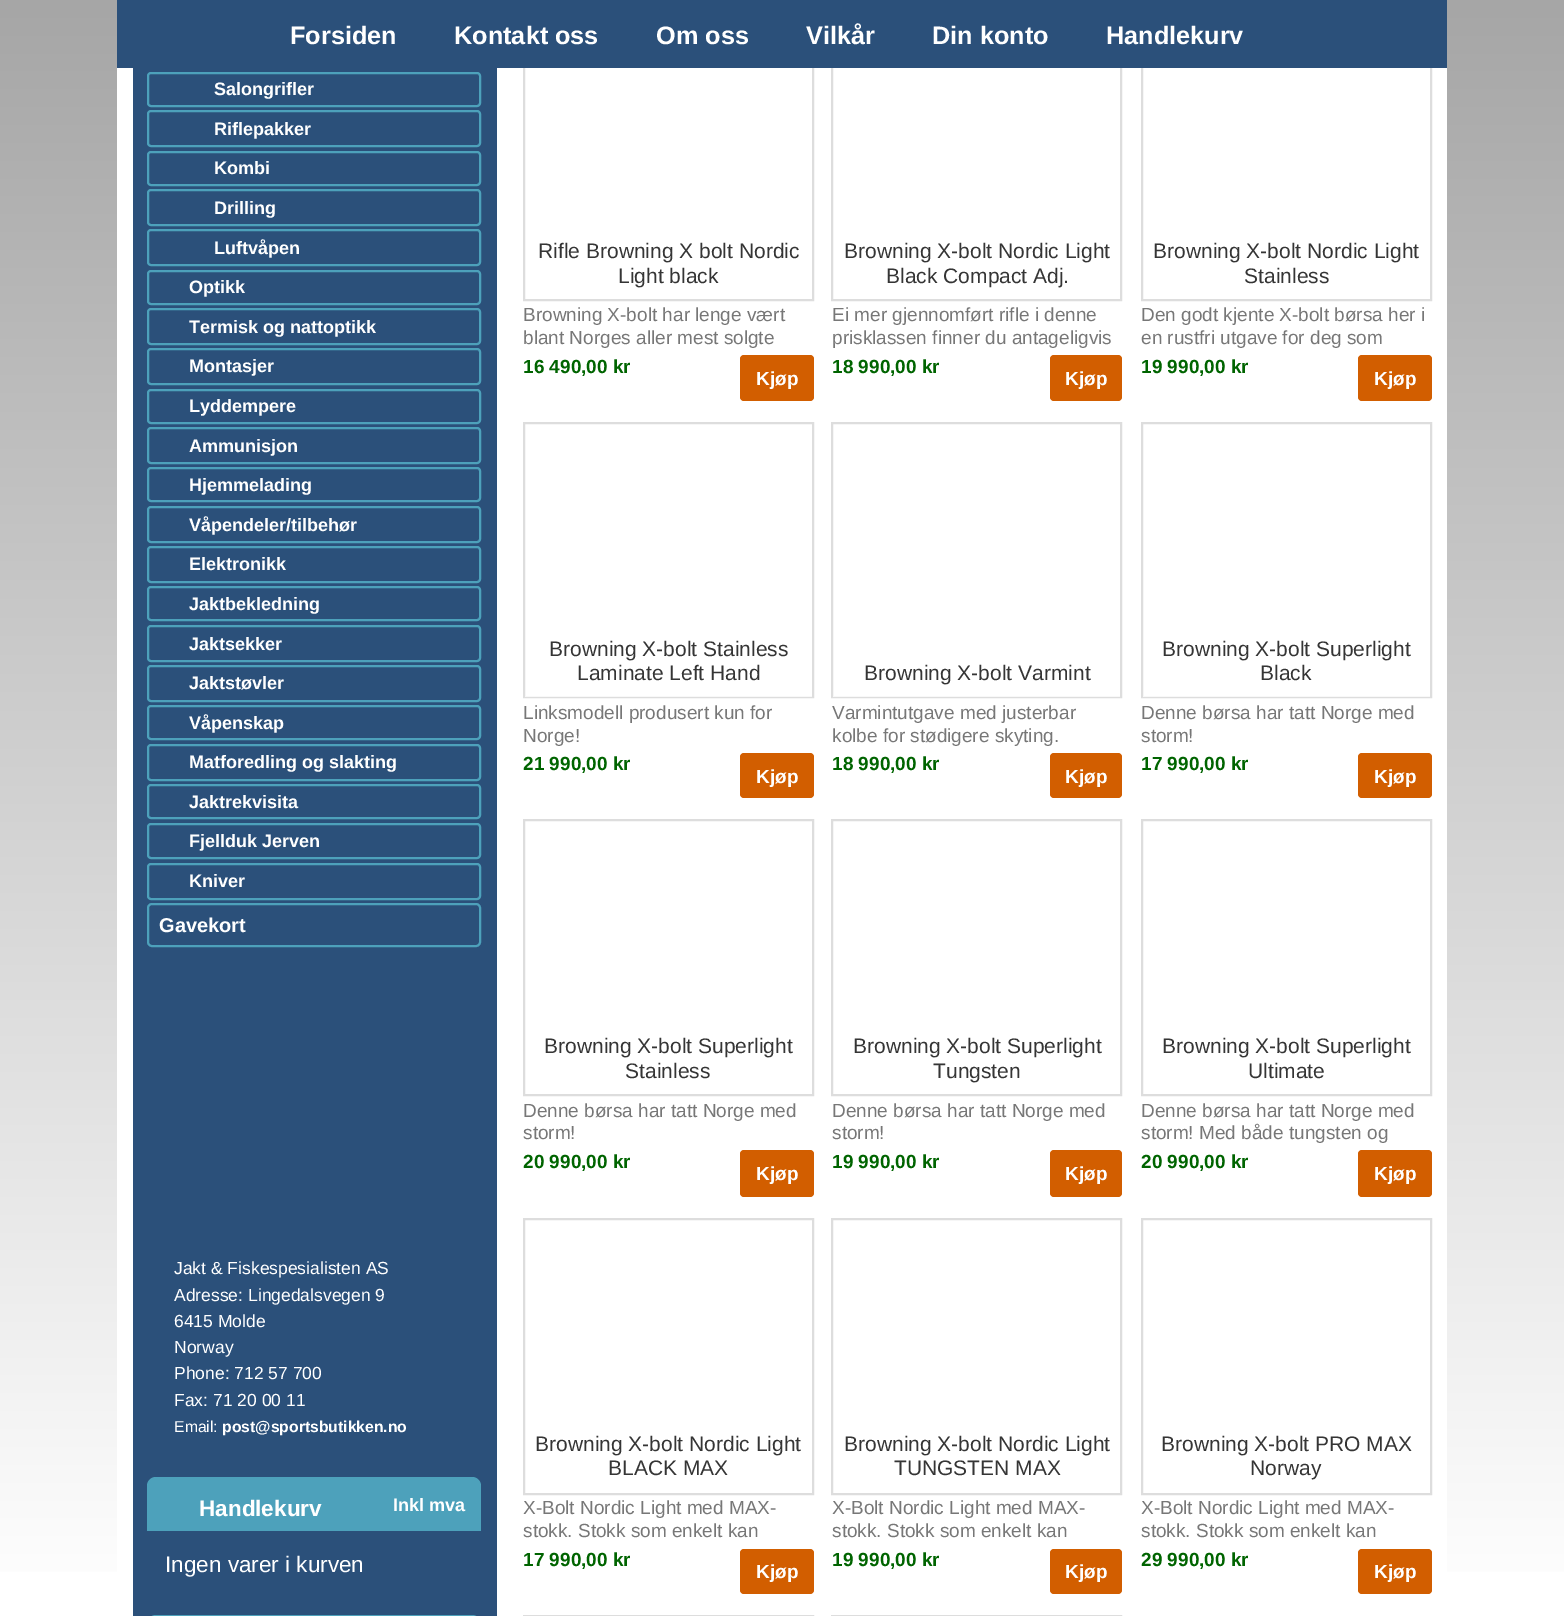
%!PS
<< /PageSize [1564 1616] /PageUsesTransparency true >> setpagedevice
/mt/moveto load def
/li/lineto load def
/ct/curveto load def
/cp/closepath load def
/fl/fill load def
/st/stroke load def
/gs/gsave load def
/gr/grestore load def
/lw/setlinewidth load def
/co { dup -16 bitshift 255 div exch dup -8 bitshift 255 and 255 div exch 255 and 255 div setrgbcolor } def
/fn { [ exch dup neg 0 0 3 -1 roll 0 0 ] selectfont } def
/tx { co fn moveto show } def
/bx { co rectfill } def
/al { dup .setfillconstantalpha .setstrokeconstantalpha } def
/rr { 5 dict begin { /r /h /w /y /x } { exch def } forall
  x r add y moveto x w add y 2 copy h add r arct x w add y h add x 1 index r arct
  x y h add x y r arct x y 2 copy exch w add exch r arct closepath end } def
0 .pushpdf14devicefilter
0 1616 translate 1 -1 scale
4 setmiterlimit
0 0 1564 1616 16#FFFFFF bx
gs 0 0 mt 1564 0 li 1564 1572 li 0 1572 li cp clip newpath
<< /ShadingType 2 /ColorSpace /DeviceRGB /Coords [782 0 782 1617] /Extend [true true] /Function << /FunctionType 2 /Domain [0 1] /C0 [.651 .651 .651] /C1 [1 1 1] /N 1 >> >> shfill gr
117 68 1330 1504 16#FFFFFF bx
16#DDDDDD co
2 lw
524 26 289 274 rectstroke
832 26 289 274 rectstroke
1142 26 289 274 rectstroke
117 0 1330 68 16#2B507A bx
133 68 364 1548 16#2B507A bx
16#4DA1BB co
148 73 332 33 3 rr st
148 111 332 35 3 rr st
148 152 332 33 3 rr st
148 190 332 35 3 rr st
148 230 332 35 3 rr st
148 271 332 33 3 rr st
148 309 332 35 3 rr st
148 349 332 35 3 rr st
148 390 332 33 3 rr st
148 428 332 35 3 rr st
148 468 332 33 3 rr st
148 507 332 35 3 rr st
148 547 332 35 3 rr st
148 587 332 33 3 rr st
148 626 332 35 3 rr st
148 666 332 35 3 rr st
148 706 332 33 3 rr st
148 745 332 35 3 rr st
148 785 332 33 3 rr st
148 824 332 34 3 rr st
148 864 332 35 3 rr st
148 904 332 42 4 rr st
156 1477 mt 472 1477 li 477 1477 481 1481 481 1486 ct 481 1531 li 147 1531 li 147 1486 li 147 1481 151 1477 156 1477 ct cp fl
156 1615 mt 472 1615 li 477 1615 481 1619 481 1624 ct 481 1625 li 147 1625 li 147 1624 li 147 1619 151 1615 156 1615 ct cp fl
16#D25E00 co
740 355 74 46 4 rr fl
1050 355 72 46 4 rr fl
1358 355 74 46 4 rr fl
16#DDDDDD co
524 423 289 274 rectstroke
0.8 al
525 696 287 1 16#FFFFFF bx
1 al
16#D25E00 co
740 753 74 45 4 rr fl
16#DDDDDD co
832 423 289 274 rectstroke
0.8 al
833 696 287 1 16#FFFFFF bx
1 al
16#D25E00 co
1050 753 72 45 4 rr fl
16#DDDDDD co
1142 423 289 274 rectstroke
0.8 al
1143 696 287 1 16#FFFFFF bx
1 al
16#D25E00 co
1358 753 74 45 4 rr fl
16#DDDDDD co
524 820 289 275 rectstroke
16#D25E00 co
740 1150 74 47 4 rr fl
16#DDDDDD co
832 820 289 275 rectstroke
16#D25E00 co
1050 1150 72 47 4 rr fl
16#DDDDDD co
1142 820 289 275 rectstroke
16#D25E00 co
1358 1150 74 47 4 rr fl
16#DDDDDD co
524 1219 289 275 rectstroke
16#D25E00 co
740 1549 74 45 4 rr fl
16#DDDDDD co
832 1219 289 275 rectstroke
16#D25E00 co
1050 1549 72 45 4 rr fl
16#DDDDDD co
1142 1219 289 275 rectstroke
16#D25E00 co
1358 1549 74 45 4 rr fl
16#DDDDDD co
524 1616 289 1 rectstroke
832 1616 289 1 rectstroke
(Forsiden) 290 44 /LiberationSans-Bold 25.25 16#FFFFFF tx
(Kontakt oss) 454 44 /LiberationSans-Bold 25.25 16#FFFFFF tx
(Om oss) 656 44 /LiberationSans-Bold 25.25 16#FFFFFF tx
(Vilkår) 806 44 /LiberationSans-Bold 25.25 16#FFFFFF tx
(Din konto) 932 44 /LiberationSans-Bold 25.25 16#FFFFFF tx
(Handlekurv) 1106 44 /LiberationSans-Bold 25.25 16#FFFFFF tx
(Salongrifler) 214 95 /LiberationSans-Bold 18 16#FFFFFF tx
(Riflepakker) 214 135 /LiberationSans-Bold 18 16#FFFFFF tx
(Kombi) 214 174 /LiberationSans-Bold 18 16#FFFFFF tx
(Drilling) 214 214 /LiberationSans-Bold 18 16#FFFFFF tx
(Luftvåpen) 214 254 /LiberationSans-Bold 18 16#FFFFFF tx
(Optikk) 189 293 /LiberationSans-Bold 18 16#FFFFFF tx
(Termisk og nattoptikk) 189 333 /LiberationSans-Bold 18 16#FFFFFF tx
(Montasjer) 189 372 /LiberationSans-Bold 18 16#FFFFFF tx
(Lyddempere) 189 412 /LiberationSans-Bold 18 16#FFFFFF tx
(Ammunisjon) 189 452 /LiberationSans-Bold 18 16#FFFFFF tx
(Hjemmelading) 189 491 /LiberationSans-Bold 18 16#FFFFFF tx
(Våpendeler/tilbehør) 189 531 /LiberationSans-Bold 18 16#FFFFFF tx
(Elektronikk) 189 570 /LiberationSans-Bold 18 16#FFFFFF tx
(Jaktbekledning) 189 610 /LiberationSans-Bold 18 16#FFFFFF tx
(Jaktsekker) 189 650 /LiberationSans-Bold 18 16#FFFFFF tx
(Jaktstøvler) 189 689 /LiberationSans-Bold 18 16#FFFFFF tx
(Våpenskap) 189 729 /LiberationSans-Bold 18 16#FFFFFF tx
(Matforedling og slakting) 189 768 /LiberationSans-Bold 18 16#FFFFFF tx
(Jaktrekvisita) 189 808 /LiberationSans-Bold 18 16#FFFFFF tx
(Fjellduk Jerven) 189 847 /LiberationSans-Bold 18 16#FFFFFF tx
(Kniver) 189 887 /LiberationSans-Bold 18 16#FFFFFF tx
(Gavekort) 159 932 /LiberationSans-Bold 20 16#FFFFFF tx
(Jakt & Fiskespesialisten AS) 174 1274 /LiberationSans-Regular 17.5 16#FFFFFF tx
(Adresse: Lingedalsvegen 9) 174 1301 /LiberationSans-Regular 17.5 16#FFFFFF tx
(6415 Molde) 174 1327 /LiberationSans-Regular 17.5 16#FFFFFF tx
(Norway) 174 1353 /LiberationSans-Regular 17.5 16#FFFFFF tx
(Phone: 712 57 700) 174 1379 /LiberationSans-Regular 17.5 16#FFFFFF tx
(Fax: 71 20 00 11) 174 1406 /LiberationSans-Regular 17.5 16#FFFFFF tx
(Email:) 174 1432 /LiberationSans-Regular 15.75 16#FFFFFF tx
(post@sportsbutikken.no) 222 1432 /LiberationSans-Bold 15.75 16#FFFFFF tx
(Handlekurv) 199 1516 /LiberationSans-Bold 22.5 16#FFFFFF tx
(Inkl mva) 393 1511 /LiberationSans-Bold 18 16#FFFFFF tx
(Ingen varer i kurven) 165 1572 /LiberationSans-Regular 22.5 16#FFFFFF tx
(Rifle Browning X bolt Nordic) 538 258 /LiberationSans-Regular 21 16#353535 tx
(Light black) 618 283 /LiberationSans-Regular 21 16#353535 tx
(Browning X-bolt har lenge vært) 523 321 /LiberationSans-Regular 19 16#777777 tx
(blant Norges aller mest solgte) 523 344 /LiberationSans-Regular 19 16#777777 tx
(16 490,00 kr) 523 373 /LiberationSans-Bold 19 16#006400 tx
(Kjøp) 756 385 /LiberationSans-Bold 19 16#FFFFFF tx
(Browning X-bolt Nordic Light) 844 258 /LiberationSans-Regular 21 16#353535 tx
(Black Compact Adj.) 886 283 /LiberationSans-Regular 21 16#353535 tx
(Ei mer gjennomført rifle i denne) 832 321 /LiberationSans-Regular 19 16#777777 tx
(prisklassen finner du antageligvis) 832 344 /LiberationSans-Regular 19 16#777777 tx
(18 990,00 kr) 832 373 /LiberationSans-Bold 19 16#006400 tx
(Kjøp) 1065 385 /LiberationSans-Bold 19 16#FFFFFF tx
(Browning X-bolt Nordic Light) 1153 258 /LiberationSans-Regular 21 16#353535 tx
(Stainless) 1244 283 /LiberationSans-Regular 21 16#353535 tx
(Den godt kjente X-bolt børsa her i) 1141 321 /LiberationSans-Regular 19 16#777777 tx
(en rustfri utgave for deg som) 1141 344 /LiberationSans-Regular 19 16#777777 tx
(19 990,00 kr) 1141 373 /LiberationSans-Bold 19 16#006400 tx
(Kjøp) 1374 385 /LiberationSans-Bold 19 16#FFFFFF tx
(Browning X-bolt Stainless) 549 656 /LiberationSans-Regular 21 16#353535 tx
(Laminate Left Hand) 577 680 /LiberationSans-Regular 21 16#353535 tx
(Linksmodell produsert kun for) 523 719 /LiberationSans-Regular 19 16#777777 tx
(Norge!) 523 742 /LiberationSans-Regular 19 16#777777 tx
(21 990,00 kr) 523 770 /LiberationSans-Bold 19 16#006400 tx
(Kjøp) 756 783 /LiberationSans-Bold 19 16#FFFFFF tx
(Browning X-bolt Varmint) 864 680 /LiberationSans-Regular 21 16#353535 tx
(Varmintutgave med justerbar) 832 719 /LiberationSans-Regular 19 16#777777 tx
(kolbe for stødigere skyting.) 832 742 /LiberationSans-Regular 19 16#777777 tx
(18 990,00 kr) 832 770 /LiberationSans-Bold 19 16#006400 tx
(Kjøp) 1065 783 /LiberationSans-Bold 19 16#FFFFFF tx
(Browning X-bolt Superlight) 1162 656 /LiberationSans-Regular 21 16#353535 tx
(Black) 1260 680 /LiberationSans-Regular 21 16#353535 tx
(Denne børsa har tatt Norge med) 1141 719 /LiberationSans-Regular 19 16#777777 tx
(storm!) 1141 742 /LiberationSans-Regular 19 16#777777 tx
(17 990,00 kr) 1141 770 /LiberationSans-Bold 19 16#006400 tx
(Kjøp) 1374 783 /LiberationSans-Bold 19 16#FFFFFF tx
(Browning X-bolt Superlight) 544 1053 /LiberationSans-Regular 21 16#353535 tx
(Stainless) 625 1078 /LiberationSans-Regular 21 16#353535 tx
(Denne børsa har tatt Norge med) 523 1117 /LiberationSans-Regular 19 16#777777 tx
(storm!) 523 1139 /LiberationSans-Regular 19 16#777777 tx
(20 990,00 kr) 523 1168 /LiberationSans-Bold 19 16#006400 tx
(Kjøp) 756 1180 /LiberationSans-Bold 19 16#FFFFFF tx
(Browning X-bolt Superlight) 853 1053 /LiberationSans-Regular 21 16#353535 tx
(Tungsten) 933 1078 /LiberationSans-Regular 21 16#353535 tx
(Denne børsa har tatt Norge med) 832 1117 /LiberationSans-Regular 19 16#777777 tx
(storm!) 832 1139 /LiberationSans-Regular 19 16#777777 tx
(19 990,00 kr) 832 1168 /LiberationSans-Bold 19 16#006400 tx
(Kjøp) 1065 1180 /LiberationSans-Bold 19 16#FFFFFF tx
(Browning X-bolt Superlight) 1162 1053 /LiberationSans-Regular 21 16#353535 tx
(Ultimate) 1248 1078 /LiberationSans-Regular 21 16#353535 tx
(Denne børsa har tatt Norge med) 1141 1117 /LiberationSans-Regular 19 16#777777 tx
(storm! Med både tungsten og) 1141 1139 /LiberationSans-Regular 19 16#777777 tx
(20 990,00 kr) 1141 1168 /LiberationSans-Bold 19 16#006400 tx
(Kjøp) 1374 1180 /LiberationSans-Bold 19 16#FFFFFF tx
(Browning X-bolt Nordic Light) 535 1451 /LiberationSans-Regular 21 16#353535 tx
(BLACK MAX) 608 1475 /LiberationSans-Regular 21 16#353535 tx
(X-Bolt Nordic Light med MAX-) 523 1514 /LiberationSans-Regular 19 16#777777 tx
(stokk. Stokk som enkelt kan) 523 1537 /LiberationSans-Regular 19 16#777777 tx
(17 990,00 kr) 523 1566 /LiberationSans-Bold 19 16#006400 tx
(Kjøp) 756 1578 /LiberationSans-Bold 19 16#FFFFFF tx
(Browning X-bolt Nordic Light) 844 1451 /LiberationSans-Regular 21 16#353535 tx
(TUNGSTEN MAX) 894 1475 /LiberationSans-Regular 21 16#353535 tx
(X-Bolt Nordic Light med MAX-) 832 1514 /LiberationSans-Regular 19 16#777777 tx
(stokk. Stokk som enkelt kan) 832 1537 /LiberationSans-Regular 19 16#777777 tx
(19 990,00 kr) 832 1566 /LiberationSans-Bold 19 16#006400 tx
(Kjøp) 1065 1578 /LiberationSans-Bold 19 16#FFFFFF tx
(Browning X-bolt PRO MAX) 1161 1451 /LiberationSans-Regular 21 16#353535 tx
(Norway) 1250 1475 /LiberationSans-Regular 21 16#353535 tx
(X-Bolt Nordic Light med MAX-) 1141 1514 /LiberationSans-Regular 19 16#777777 tx
(stokk. Stokk som enkelt kan) 1141 1537 /LiberationSans-Regular 19 16#777777 tx
(29 990,00 kr) 1141 1566 /LiberationSans-Bold 19 16#006400 tx
(Kjøp) 1374 1578 /LiberationSans-Bold 19 16#FFFFFF tx
.poppdf14devicefilter showpage
